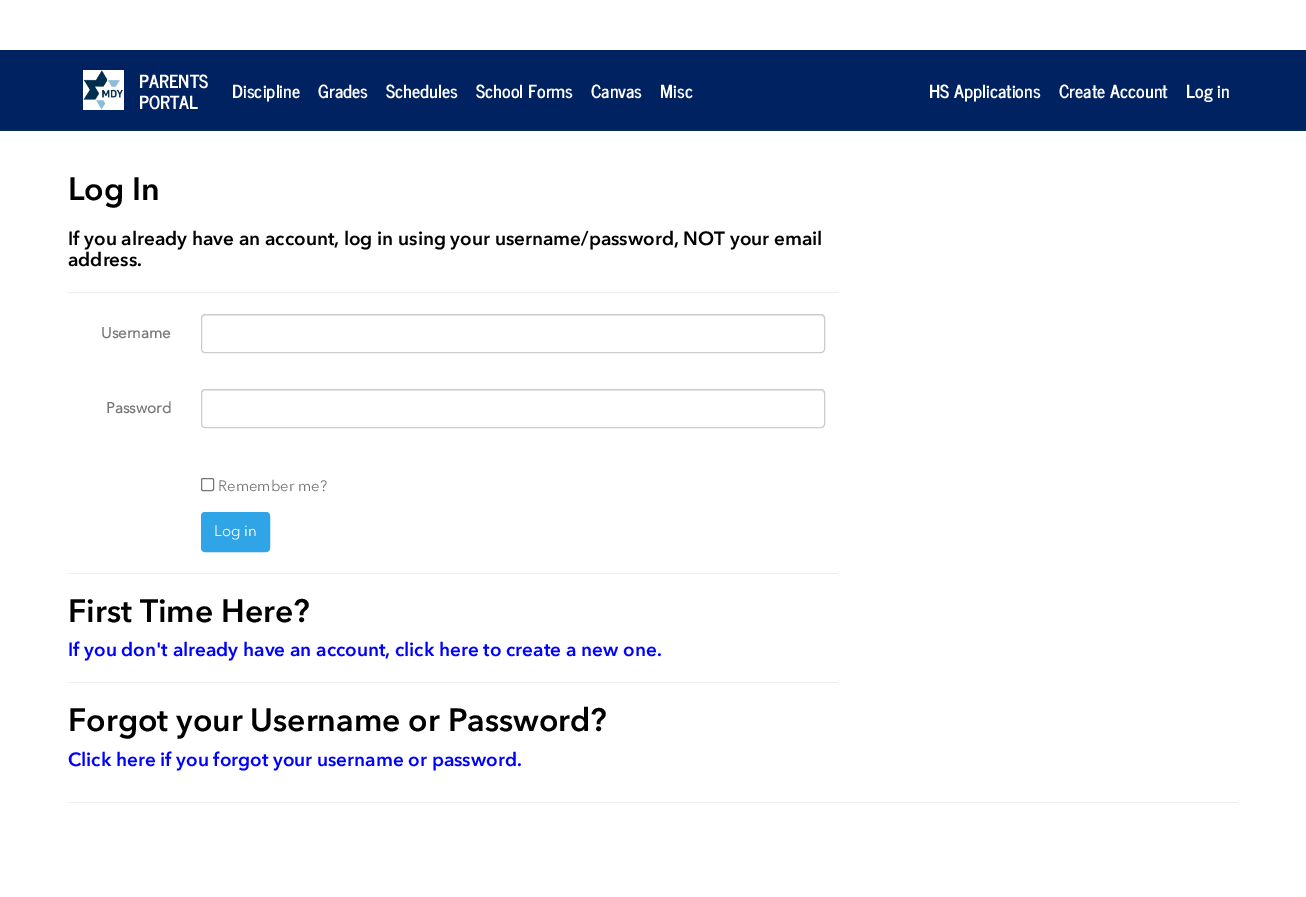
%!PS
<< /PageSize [1306 897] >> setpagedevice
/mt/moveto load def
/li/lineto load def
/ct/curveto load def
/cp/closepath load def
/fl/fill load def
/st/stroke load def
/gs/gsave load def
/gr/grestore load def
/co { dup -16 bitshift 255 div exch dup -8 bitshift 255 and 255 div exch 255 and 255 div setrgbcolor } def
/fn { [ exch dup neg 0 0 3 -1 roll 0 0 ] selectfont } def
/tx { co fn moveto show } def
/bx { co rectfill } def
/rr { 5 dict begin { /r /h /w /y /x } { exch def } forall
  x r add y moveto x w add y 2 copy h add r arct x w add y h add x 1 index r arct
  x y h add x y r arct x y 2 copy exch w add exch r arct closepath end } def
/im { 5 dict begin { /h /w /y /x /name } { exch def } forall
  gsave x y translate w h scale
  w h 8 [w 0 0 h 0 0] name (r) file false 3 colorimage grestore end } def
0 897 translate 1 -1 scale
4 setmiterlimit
0 0 1306 897 16#FFFFFF bx
0 50 1306 80 16#002261 bx
0 130 1306 1 16#022F5A bx
(media/1.raw) 83 70 41 40 im
68 292 770 1 16#EEEEEE bx
16#ECECEC co
205 316 mt 821 316 li 823 316 824 317 824 319 ct 824 318 li 824 316 823 315 821 315 ct 205 315 li 203 315 202 316 202 318 ct 202 319 li 202 317 203 316 205 316 ct cp fl
16#CCCCCC co
201.5 314.5 623 38 3.5 rr st
16#ECECEC co
205 391 mt 821 391 li 823 391 824 392 824 394 ct 824 393 li 824 391 823 390 821 390 ct 205 390 li 203 390 202 391 202 393 ct 202 394 li 202 392 203 391 205 391 ct cp fl
16#CCCCCC co
201.5 389.5 623 38 3.5 rr st
16#767676 co
201.5 478.5 12 12 1.5 rr st
16#2FA4E7 co
201.5 512.5 68 39 3.5 rr gs fl gr
st
68 573 770 1 16#EEEEEE bx
68 682 770 1 16#EEEEEE bx
68 802 1170 1 16#EEEEEE bx
(PARENTS) 139 88 /NewsCycle-Bold 18 16#FFFFFF tx
(PORTAL) 139 109 /NewsCycle-Bold 18 16#FFFFFF tx
(Discipline) 232 98 /NewsCycle-Bold 18 16#FFFFFF tx
(Grades) 318 98 /NewsCycle-Bold 18 16#FFFFFF tx
(Schedules) 386 98 /NewsCycle-Bold 18 16#FFFFFF tx
(School Forms) 476 98 /NewsCycle-Bold 18 16#FFFFFF tx
(Canvas) 591 98 /NewsCycle-Bold 18 16#FFFFFF tx
(Misc) 660 98 /NewsCycle-Bold 18 16#FFFFFF tx
(HS Applications) 929 98 /NewsCycle-Bold 18 16#FFFFFF tx
(Create Account) 1059 98 /NewsCycle-Bold 18 16#FFFFFF tx
(Log in) 1186 98 /NewsCycle-Bold 18 16#FFFFFF tx
(Log In) 68 200 /AvenirNext-SemiBold 32 16#000000 tx
(If you already have an account, log in using your username/password, NOT your email) 68 245 /AvenirNext-SemiBold 19 16#000000 tx
(address.) 68 266 /AvenirNext-SemiBold 19 16#000000 tx
(Username) 101 338 /AvenirNext-Bold 15 16#777777 tx
(Password) 106 413 /AvenirNext-Bold 15 16#777777 tx
(Remember me?) 218 491 /AvenirNext-Regular 15 16#777777 tx
(Log in) 214 536 /AvenirNext-Regular 15 16#FFFFFF tx
(First Time Here?) 68 622 /AvenirNext-SemiBold 32 16#000000 tx
(If you don't already have an account, click here to create a new one.) 68 656 /AvenirNext-SemiBold 19 16#0000FF tx
(Forgot your Username or Password?) 68 731 /AvenirNext-SemiBold 32 16#000000 tx
(Click here if you forgot your username or password.) 68 766 /AvenirNext-SemiBold 19 16#0000FF tx
showpage
